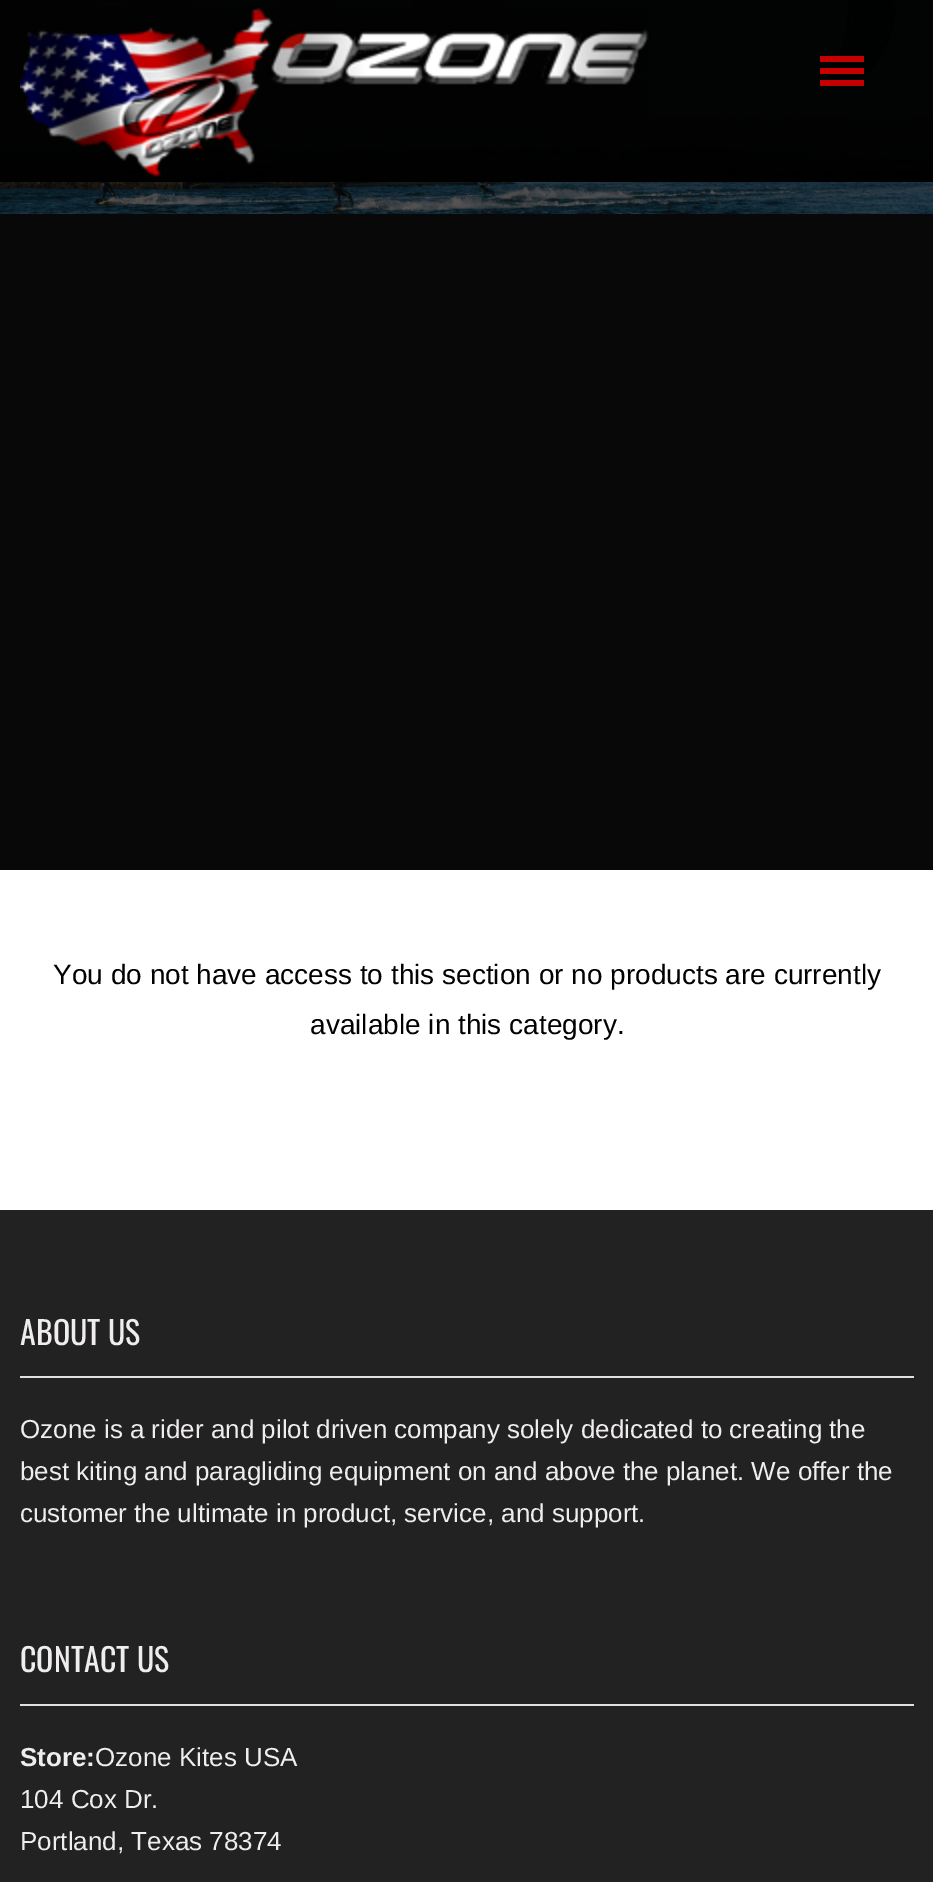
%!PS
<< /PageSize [933 1882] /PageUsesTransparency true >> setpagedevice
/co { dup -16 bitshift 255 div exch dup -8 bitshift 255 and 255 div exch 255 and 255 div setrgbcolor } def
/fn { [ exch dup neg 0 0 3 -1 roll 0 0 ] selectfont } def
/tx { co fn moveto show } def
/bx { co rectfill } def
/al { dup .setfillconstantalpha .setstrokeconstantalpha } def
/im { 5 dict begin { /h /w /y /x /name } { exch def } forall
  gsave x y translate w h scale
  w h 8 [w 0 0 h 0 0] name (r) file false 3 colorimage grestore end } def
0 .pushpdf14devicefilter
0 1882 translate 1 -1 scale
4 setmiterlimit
0 0 933 1882 16#080808 bx
(media/1.raw) 0 0 933 214 im
0.97 al
0 0 933 182 16#000000 bx
1 al
(media/2.raw) 20 7 629 170 im
820 56 44 6 16#C60000 bx
820 68 44 6 16#C60000 bx
820 80 44 6 16#C60000 bx
0 870 933 340 16#FFFFFF bx
0 1210 933 672 16#222222 bx
20 1376 894 2 16#E1E1E1 bx
20 1704 894 2 16#E1E1E1 bx
(You do not have access to this section or no products are currently) 53 984 /Arimo-Regular 28 16#000000 tx
(available in this category.) 310 1034 /Arimo-Regular 28 16#000000 tx
(ABOUT US) 20 1345 /Oswald-Regular 32 16#F0EDED tx
(Ozone is a rider and pilot driven company solely dedicated to creating the) 20 1438 /Arimo-Regular 26 16#F0EDED tx
(best kiting and paragliding equipment on and above the planet. We offer the) 20 1480 /Arimo-Regular 26 16#F0EDED tx
(customer the ultimate in product, service, and support.) 20 1522 /Arimo-Regular 26 16#F0EDED tx
(CONTACT US) 20 1672 /Oswald-Regular 32 16#F0EDED tx
(Store:) 20 1766 /Arimo-Bold 26 16#F0EDED tx
(Ozone Kites USA) 95 1766 /Arimo-Regular 26 16#F0EDED tx
(104 Cox Dr.) 20 1808 /Arimo-Regular 26 16#F0EDED tx
(Portland, Texas 78374) 20 1850 /Arimo-Regular 26 16#F0EDED tx
.poppdf14devicefilter showpage
